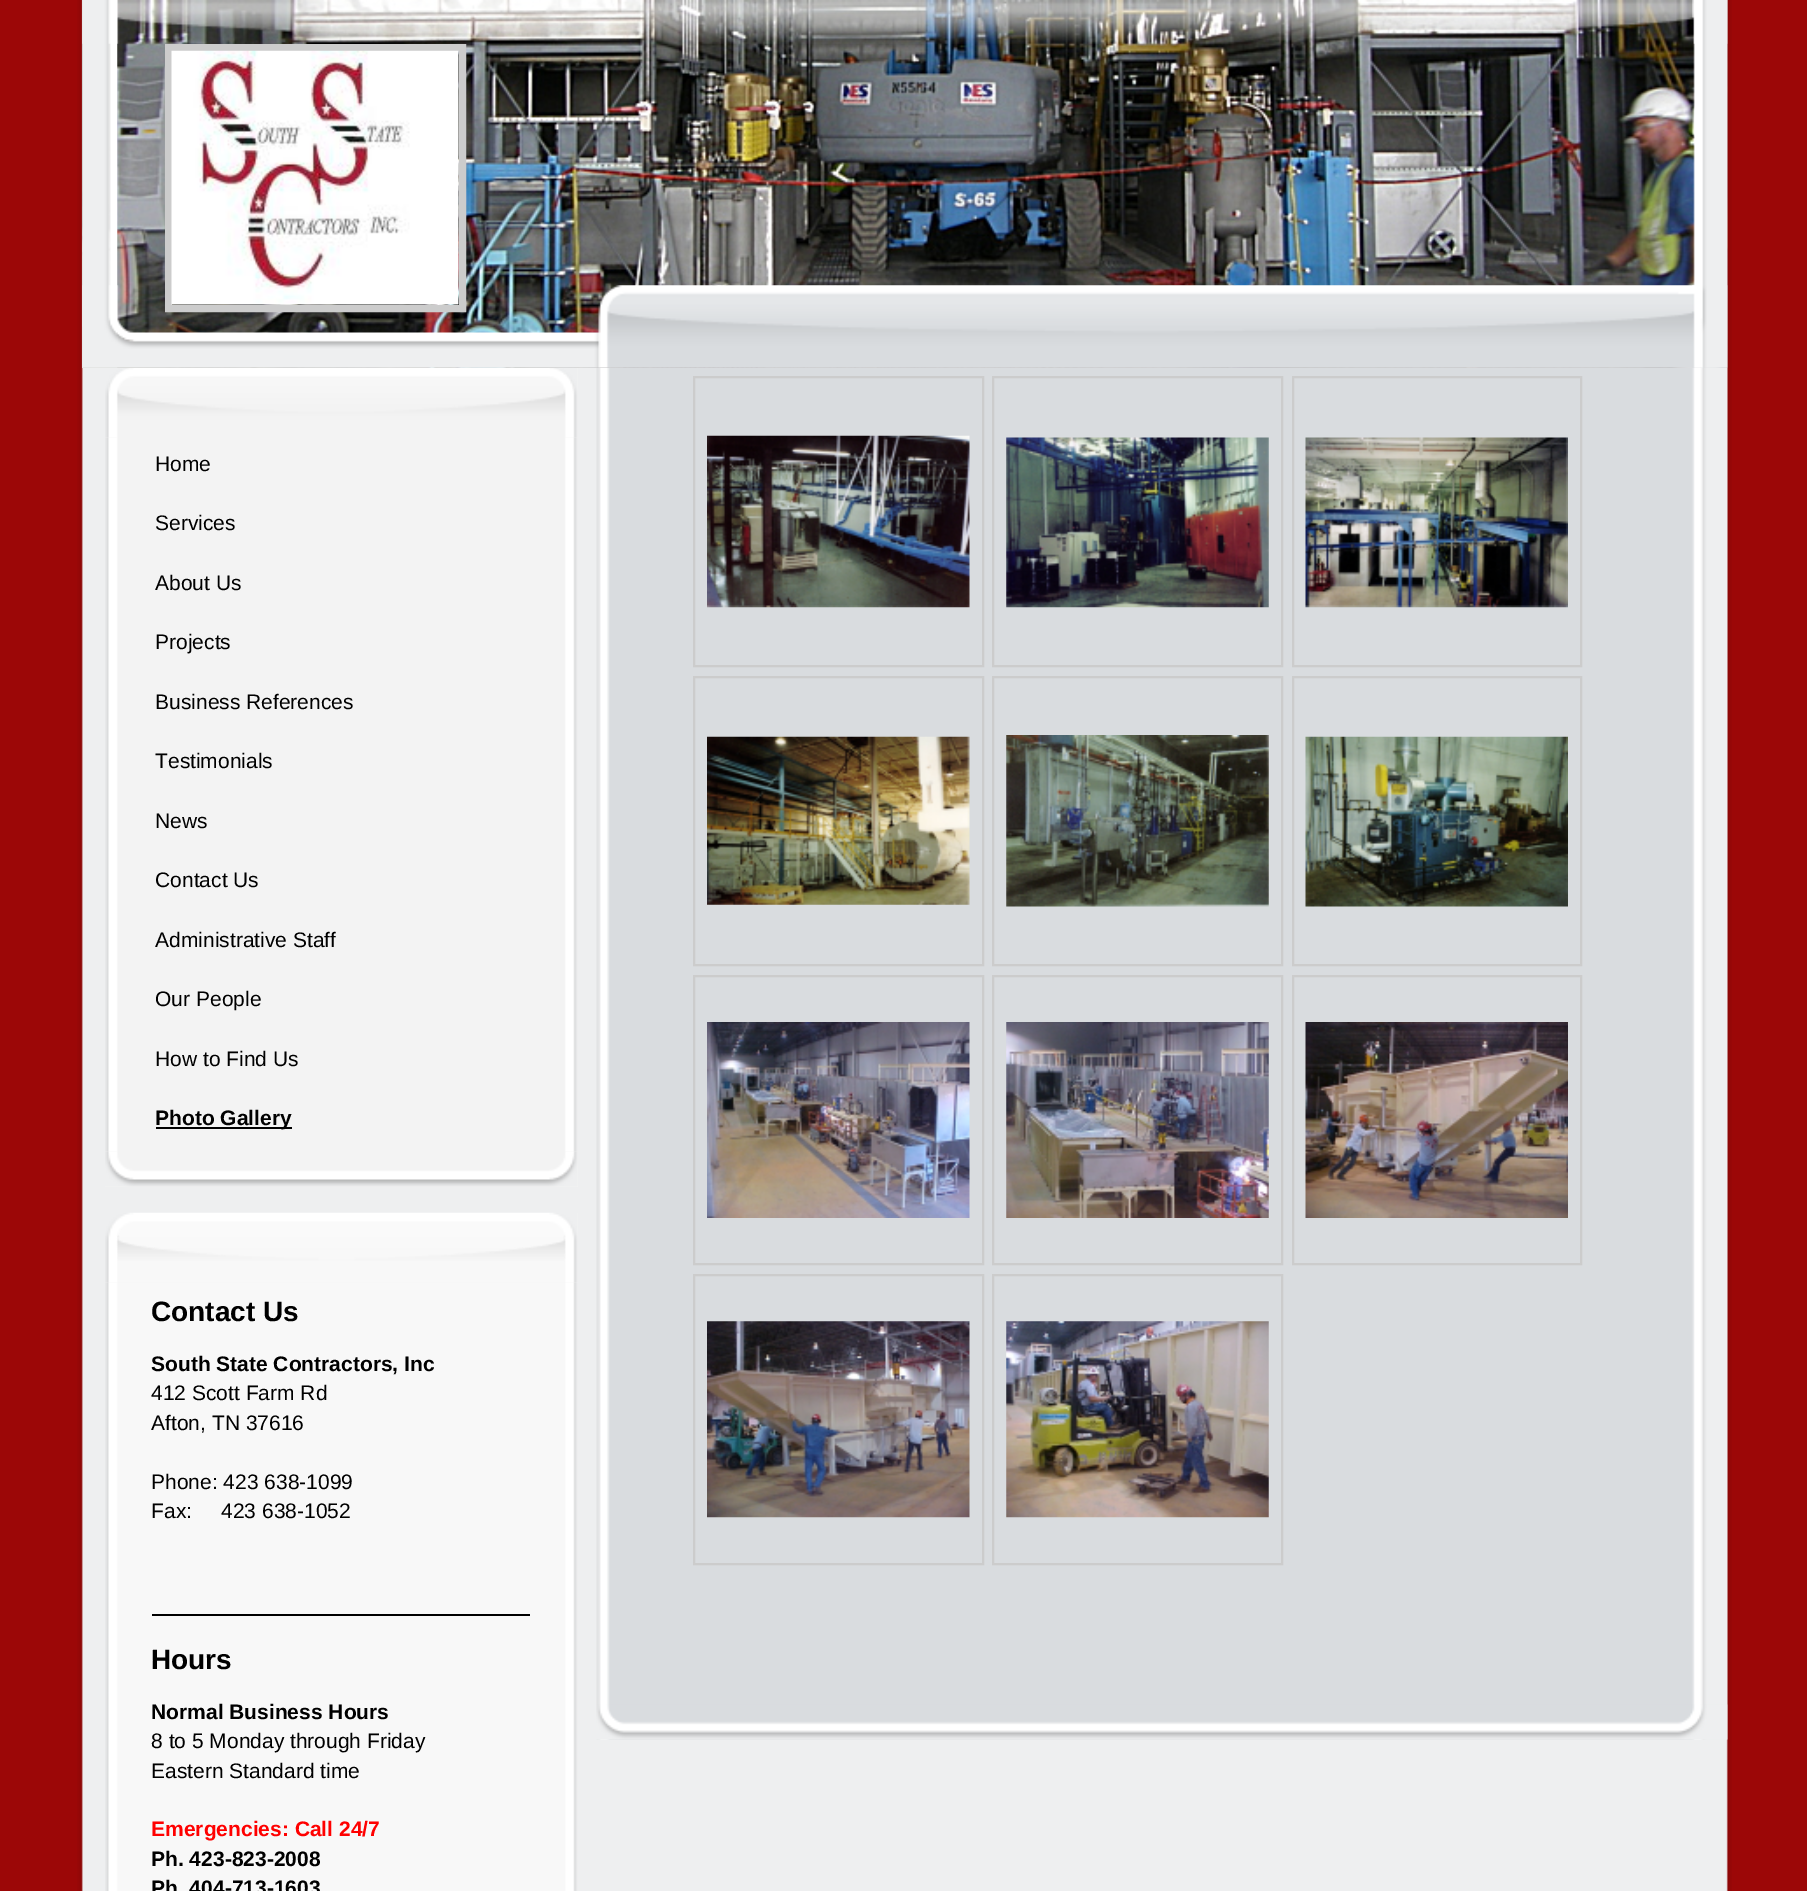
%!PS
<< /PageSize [1807 1891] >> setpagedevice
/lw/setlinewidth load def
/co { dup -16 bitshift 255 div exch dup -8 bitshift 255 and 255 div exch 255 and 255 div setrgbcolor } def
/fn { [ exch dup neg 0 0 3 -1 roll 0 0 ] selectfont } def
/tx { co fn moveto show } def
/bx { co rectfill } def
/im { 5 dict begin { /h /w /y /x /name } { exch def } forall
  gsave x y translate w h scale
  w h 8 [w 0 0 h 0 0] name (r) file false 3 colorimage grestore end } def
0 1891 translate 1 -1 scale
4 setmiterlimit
0 0 1807 1891 16#9C0707 bx
(media/1.raw) 77 0 1655 1891 im
(media/13.raw) 596 367 1132 1373 im
82 0 1645 368 16#EEEEEE bx
(media/2.raw) 82 0 1646 368 im
(media/7.raw) 82 285 1646 83 im
16#CCCCCC co
7 lw
168.5 47.5 294 261 rectstroke
(media/3.raw) 171 50 288 255 im
(media/4.raw) 82 0 1646 44 im
(media/5.raw) 82 0 36 368 im
(media/6.raw) 1692 0 36 368 im
105 368 473 819 16#F3F3F3 bx
(media/8.raw) 105 368 473 70 im
(media/9.raw) 105 1151 473 36 im
(media/10.raw) 105 437 473 715 im
156 1127 136 2 16#000000 bx
105 1213 473 678 16#F3F3F3 bx
(media/11.raw) 105 1212 473 71 im
(media/12.raw) 105 1283 473 608 im
152 1614 378 2 16#000000 bx
(media/14.raw) 596 1704 1132 36 im
16#CCCCCC co
2 lw
694 377 289 289 rectstroke
(media/15.raw) 707 435 263 173 im
993 377 289 289 rectstroke
(media/16.raw) 1006 437 263 171 im
1293 377 288 289 rectstroke
(media/17.raw) 1305 437 263 171 im
694 677 289 288 rectstroke
(media/18.raw) 707 736 263 169 im
993 677 289 288 rectstroke
(media/19.raw) 1006 735 263 172 im
1293 677 288 288 rectstroke
(media/20.raw) 1305 736 263 171 im
694 976 289 288 rectstroke
(media/21.raw) 707 1022 263 196 im
993 976 289 288 rectstroke
(media/22.raw) 1006 1022 263 196 im
1293 976 288 288 rectstroke
(media/23.raw) 1305 1022 263 196 im
694 1275 289 289 rectstroke
(media/24.raw) 707 1321 263 197 im
993 1275 289 289 rectstroke
(media/25.raw) 1006 1321 263 197 im
(Home) 155 471 /LiberationSans-Regular 21 16#000000 tx
(Services) 155 530 /LiberationSans-Regular 21 16#000000 tx
(About Us) 155 590 /LiberationSans-Regular 21 16#000000 tx
(Projects) 155 649 /LiberationSans-Regular 21 16#000000 tx
(Business References) 155 709 /LiberationSans-Regular 21 16#000000 tx
(Testimonials) 155 768 /LiberationSans-Regular 21 16#000000 tx
(News) 155 828 /LiberationSans-Regular 21 16#000000 tx
(Contact Us) 155 887 /LiberationSans-Regular 21 16#000000 tx
(Administrative Staff) 155 947 /LiberationSans-Regular 21 16#000000 tx
(Our People) 155 1006 /LiberationSans-Regular 21 16#000000 tx
(How to Find Us) 155 1066 /LiberationSans-Regular 21 16#000000 tx
(Photo Gallery) 155 1125 /LiberationSans-Bold 21 16#000000 tx
(Contact Us) 151 1321 /LiberationSans-Bold 28 16#000000 tx
(South State Contractors, Inc) 151 1371 /LiberationSans-Bold 21 16#000000 tx
(412 Scott Farm Rd) 151 1400 /LiberationSans-Regular 21 16#000000 tx
(Afton, TN 37616) 151 1430 /LiberationSans-Regular 21 16#000000 tx
(Phone: 423 638-1099) 151 1489 /LiberationSans-Regular 21 16#000000 tx
(Fax:     423 638-1052) 151 1518 /LiberationSans-Regular 21 16#000000 tx
(Hours) 151 1669 /LiberationSans-Bold 28 16#000000 tx
(Normal Business Hours) 151 1719 /LiberationSans-Bold 21 16#000000 tx
(8 to 5 Monday through Friday) 151 1748 /LiberationSans-Regular 21 16#000000 tx
(Eastern Standard time) 151 1778 /LiberationSans-Regular 21 16#000000 tx
(Emergencies: Call 24/7) 151 1836 /LiberationSans-Bold 21 16#FF0000 tx
(Ph. 423-823-2008) 151 1866 /LiberationSans-Bold 21 16#000000 tx
(Ph. 404-713-1603) 151 1895 /LiberationSans-Bold 21 16#000000 tx
showpage
